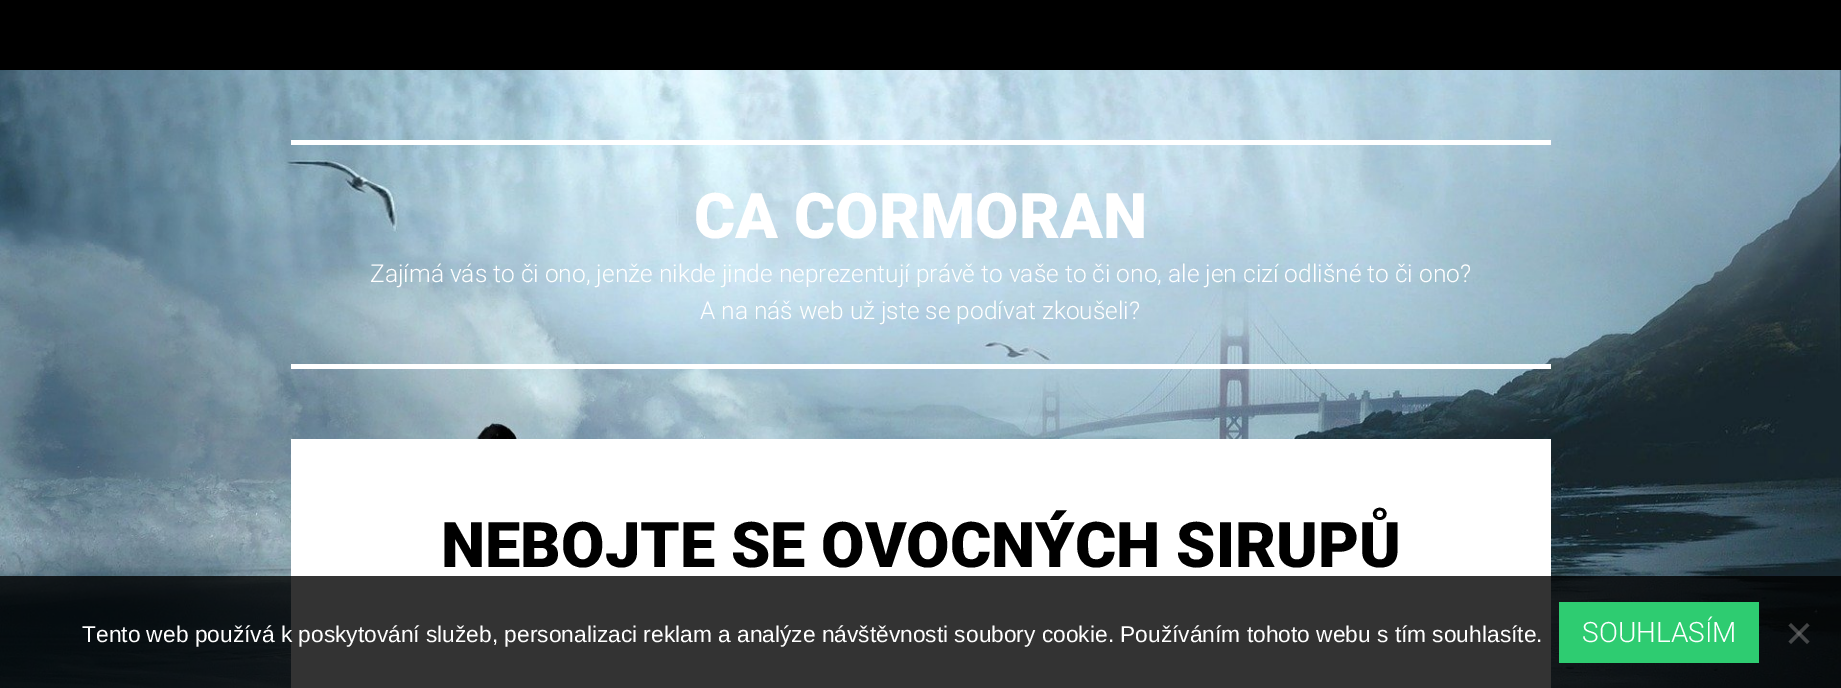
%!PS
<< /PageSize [1841 688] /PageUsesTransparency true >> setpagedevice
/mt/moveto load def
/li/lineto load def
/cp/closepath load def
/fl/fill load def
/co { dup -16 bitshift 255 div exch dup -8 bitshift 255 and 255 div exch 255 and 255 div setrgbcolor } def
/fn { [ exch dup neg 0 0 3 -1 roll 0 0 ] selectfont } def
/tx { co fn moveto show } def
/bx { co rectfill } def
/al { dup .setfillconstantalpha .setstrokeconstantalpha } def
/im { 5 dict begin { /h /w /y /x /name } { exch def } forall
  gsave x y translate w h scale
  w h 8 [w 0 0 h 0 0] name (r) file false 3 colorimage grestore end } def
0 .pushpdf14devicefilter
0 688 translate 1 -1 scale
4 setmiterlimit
0 0 1841 688 16#FFFFFF bx
(media/1.raw) 0 70 1841 618 im
0 0 1841 70 16#000000 bx
291 140 1260 5 16#FFFFFF bx
291 364 1260 5 16#FFFFFF bx
291 439 1260 249 16#FFFFFF bx
0.8 al
0 576 1841 112 16#000000 bx
1 al
1559 602 200 61 16#2ECC71 bx
0.5 al
16#808080 co
1807 623 mt 1809.5 625.5 li 1791 644 li 1788.5 641.5 li cp fl
1788.5 625.5 mt 1791 623 li 1809.5 641.5 li 1807 644 li cp fl
1 al
(CA CORMORAN) 694 238 /Roboto-Black 63 16#FFFFFF tx
(Zajímá vás to či ono, jenže nikde jinde neprezentují právě to vaše to či ono, ale jen cizí odlišné to či ono?) 370 282 /Roboto-Light 24.5 16#FFFFFF tx
(A na náš web už jste se podívat zkoušeli?) 700 319 /Roboto-Light 24.5 16#FFFFFF tx
(NEBOJTE SE OVOCNÝCH SIRUPŮ) 441 567 /Roboto-Black 63 16#000000 tx
(Tento web používá k poskytování služeb, personalizaci reklam a analýze návštěvnosti soubory cookie. Používáním tohoto webu s tím souhlasíte.) 82 642 /LiberationSans-Regular 22.75 16#FFFFFF tx
(SOUHLASÍM) 1582 642 /Roboto-Light 28 16#FFFFFF tx
.poppdf14devicefilter showpage
